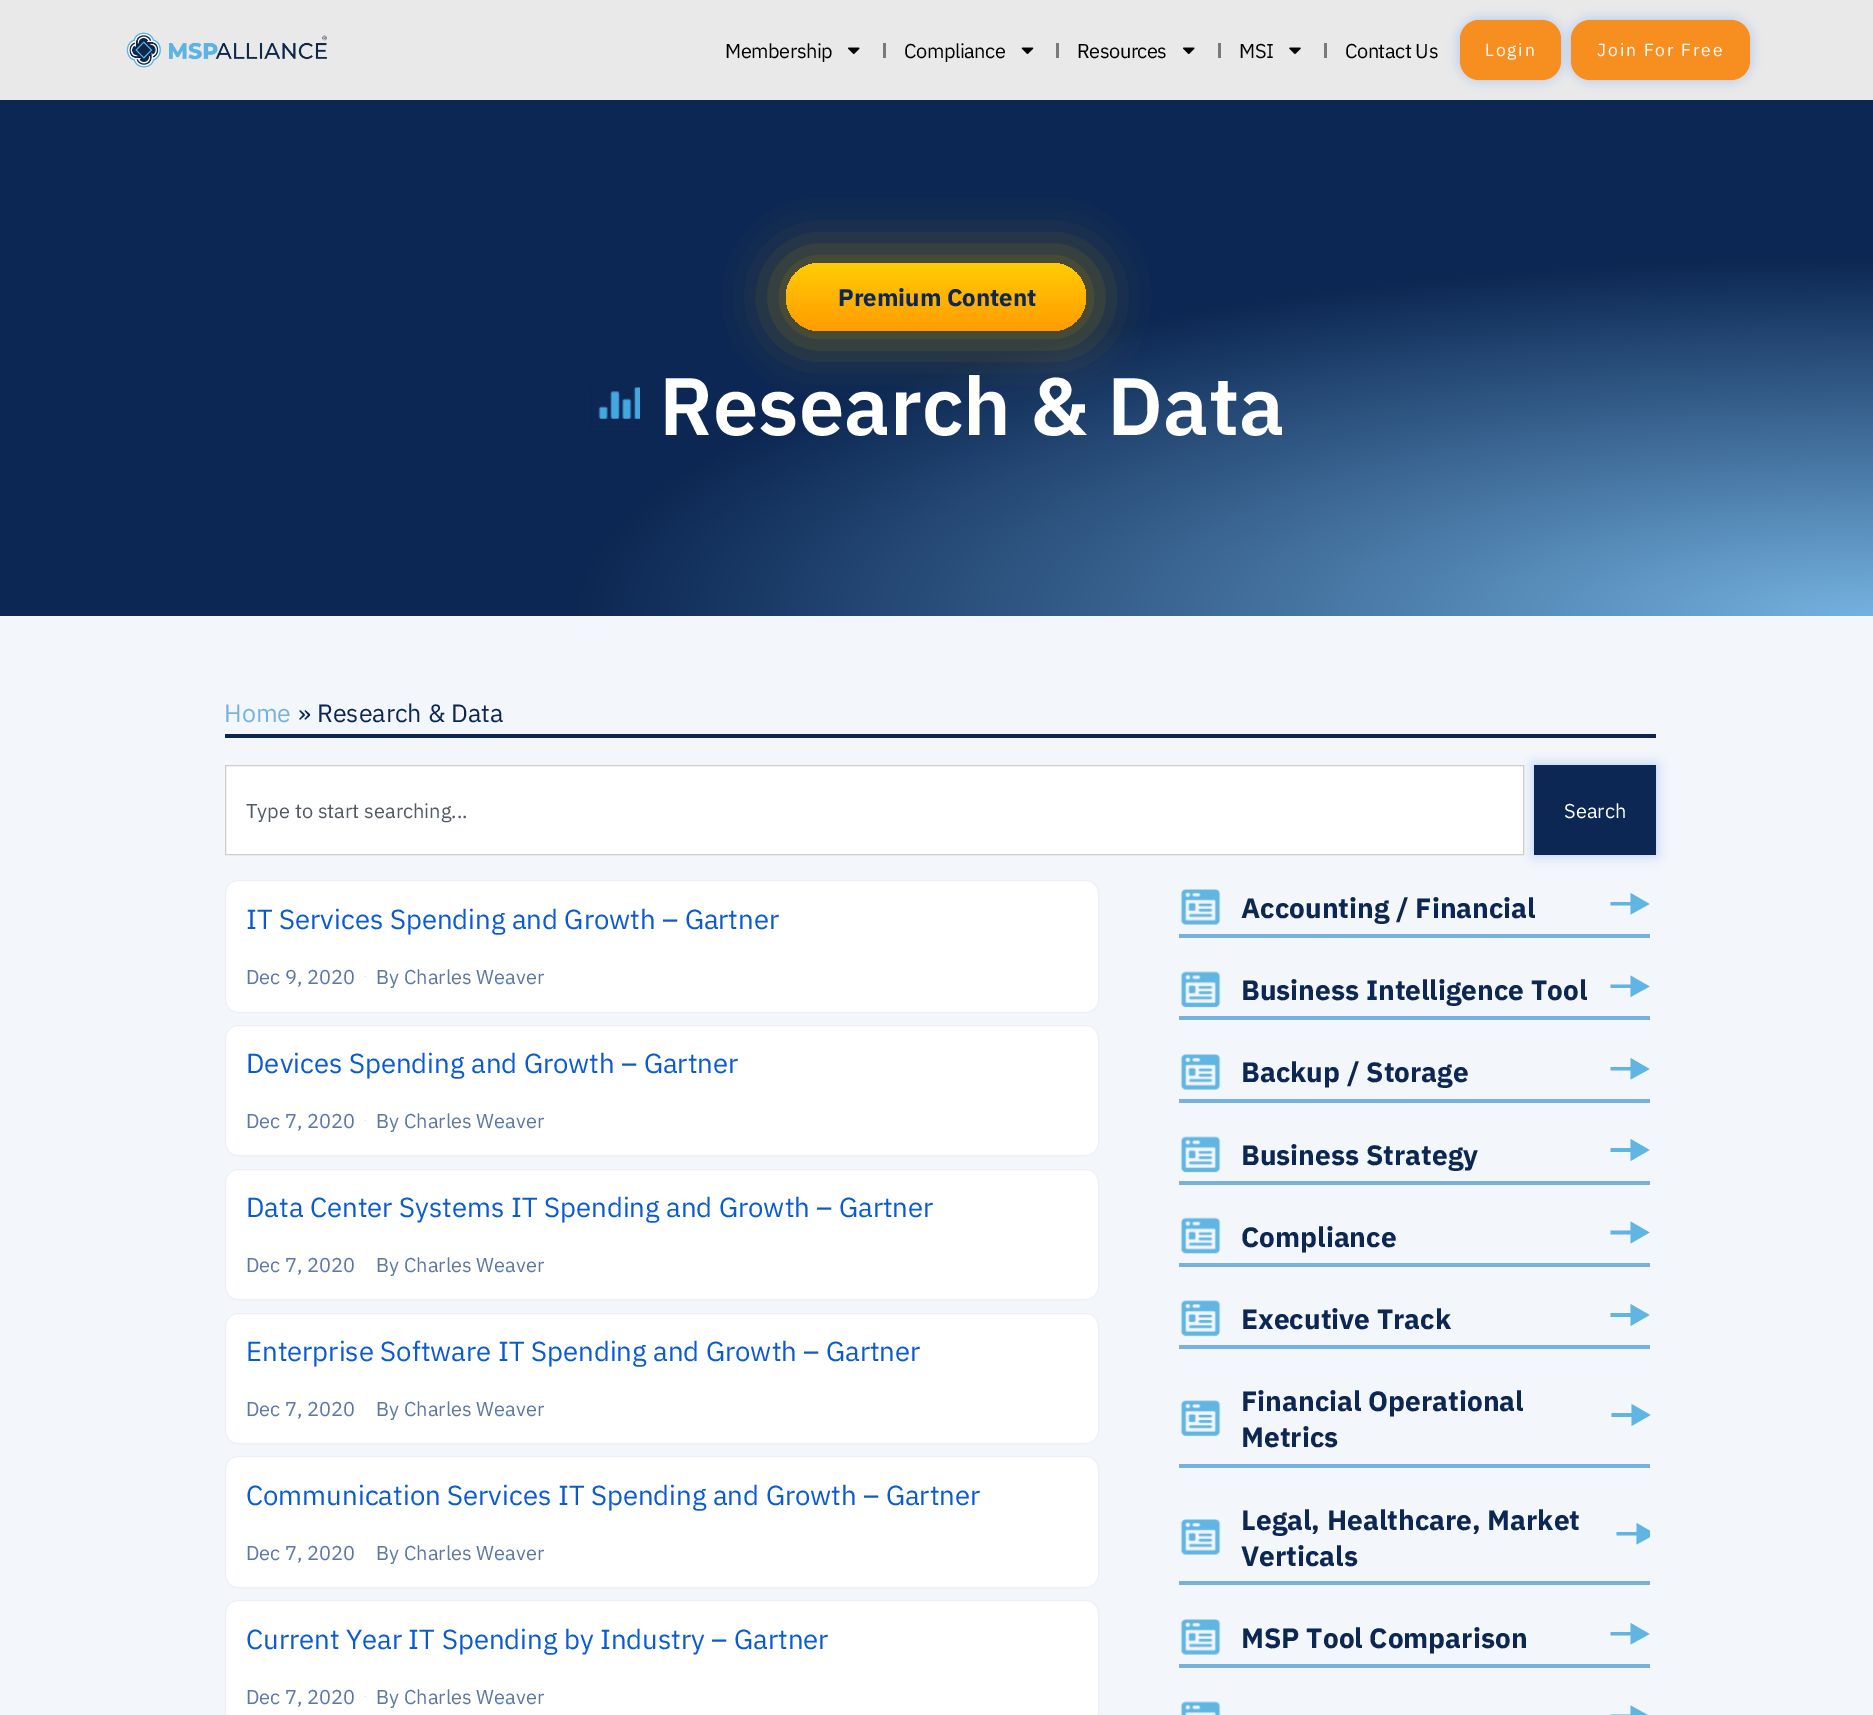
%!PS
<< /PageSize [1873 1715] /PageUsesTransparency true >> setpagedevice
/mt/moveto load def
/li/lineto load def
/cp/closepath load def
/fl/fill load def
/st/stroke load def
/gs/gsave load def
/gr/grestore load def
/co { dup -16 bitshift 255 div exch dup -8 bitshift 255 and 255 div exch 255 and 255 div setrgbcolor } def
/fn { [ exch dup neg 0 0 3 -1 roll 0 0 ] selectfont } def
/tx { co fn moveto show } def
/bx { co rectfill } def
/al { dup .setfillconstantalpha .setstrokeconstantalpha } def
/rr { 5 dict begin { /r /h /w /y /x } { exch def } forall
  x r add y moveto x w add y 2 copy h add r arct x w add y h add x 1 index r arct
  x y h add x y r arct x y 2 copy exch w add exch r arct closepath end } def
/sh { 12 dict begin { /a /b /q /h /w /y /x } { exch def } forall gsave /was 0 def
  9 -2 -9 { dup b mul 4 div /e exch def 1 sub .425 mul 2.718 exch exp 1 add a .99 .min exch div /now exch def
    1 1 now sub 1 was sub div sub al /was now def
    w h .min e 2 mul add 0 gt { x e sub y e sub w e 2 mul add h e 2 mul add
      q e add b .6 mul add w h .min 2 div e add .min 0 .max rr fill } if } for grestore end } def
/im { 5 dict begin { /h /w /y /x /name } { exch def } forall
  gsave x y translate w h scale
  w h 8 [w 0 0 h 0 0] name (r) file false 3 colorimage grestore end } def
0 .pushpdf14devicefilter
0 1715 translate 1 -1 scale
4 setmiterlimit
0 0 1873 1715 16#FFFFFF bx
0 0 1873 100 16#E9E9E9 bx
(media/1.raw) 126 32 201 36 im
(media/2.raw) 848 47 12 7 im
883 43 3 15 16#7A7A7A bx
(media/3.raw) 1021 47 13 7 im
1056 43 3 15 16#7A7A7A bx
(media/2.raw) 1183 47 12 7 im
1218 43 3 15 16#7A7A7A bx
(media/4.raw) 1289 47 12 7 im
1324 43 3 15 16#7A7A7A bx
16#4081E5 co
1460 20 101 60 19 6 .35 sh
16#F78F20 co
1460 20 101 60 19 rr fl
16#4081E5 co
1571 20 179 60 19 6 .35 sh
16#F78F20 co
1571 20 179 60 19 rr fl
gs 0 100 mt 1873 100 li 1873 616 li 0 616 li cp clip newpath 1874 616 translate 2650 730 scale
<< /ShadingType 3 /ColorSpace /DeviceRGB /Coords [0 0 0 0 0 1] /Extend [true true] /Function << /FunctionType 3 /Domain [0 1] /Functions [<< /FunctionType 2 /Domain [0 1] /C0 [.459 .698 .878] /C1 [.047 .153 .325] /N 1 >> << /FunctionType 2 /Domain [0 1] /C0 [.047 .153 .325] /C1 [.047 .153 .325] /N 1 >>] /Bounds [.49] /Encode [0 1 0 1] >> >> shfill gr
16#B88E00 co
773 249 327 96 48 23 .5 sh
gs 786 263 300 68 34 rr clip newpath
<< /ShadingType 2 /ColorSpace /DeviceRGB /Coords [936 263 936 331] /Extend [true true] /Function << /FunctionType 2 /Domain [0 1] /C0 [1 .8 .02] /C1 [1 .612 0] /N 1 >> >> shfill gr
(media/5.raw) 590 387 50 41 im
0 616 1873 1099 16#F3F6FA bx
225 734 1431 4 16#0C2753 bx
16#4081E5 co
1534 765 122 90 0 6 .35 sh
16#FFFFFF co
225.5 765.5 mt 1523.5 765.5 li 1523.5 854.5 li 225.5 854.5 li cp gs fl gr
16#CDCDCD co
st
1534 765 122 90 16#0C2753 bx
16#FFFFFF co
225.5 880.5 873 132 12.5 rr gs fl gr
16#ECEFF5 co
st
365 976 1 1 16#DDDDDD bx
16#FFFFFF co
225.5 1025.5 873 130 12.5 rr gs fl gr
16#ECEFF5 co
st
365 1120 1 1 16#DDDDDD bx
16#FFFFFF co
225.5 1169.5 873 130 12.5 rr gs fl gr
16#ECEFF5 co
st
16#FFFFFF co
225.5 1313.5 873 130 12.5 rr gs fl gr
16#ECEFF5 co
st
16#FFFFFF co
225.5 1456.5 873 131 12.5 rr gs fl gr
16#ECEFF5 co
st
16#FFFFFF co
225.5 1600.5 873 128 12.5 rr gs fl gr
16#ECEFF5 co
st
365 1696 1 1 16#DDDDDD bx
1179 934 471 4 16#75B2E0 bx
(media/6.raw) 1180 889 41 36 im
16#60B5E3 co
1649.5 904 mt 1630.5 893 li 1630.5 914.5 li cp 1610.5 905.5 mt 1632 905.5 li 1632 902 li 1610.5 902 li cp fl
1179 1016 471 4 16#75B2E0 bx
(media/7.raw) 1180 971 41 37 im
16#60B5E3 co
1649.5 986.5 mt 1630.5 975.5 li 1630.5 997 li cp 1610.5 988 mt 1632 988 li 1632 984.5 li 1610.5 984.5 li cp fl
1179 1099 471 4 16#75B2E0 bx
(media/6.raw) 1180 1054 41 36 im
16#60B5E3 co
1649.5 1069 mt 1630.5 1058 li 1630.5 1079.5 li cp 1610.5 1070.5 mt 1632 1070.5 li 1632 1067 li 1610.5 1067 li cp fl
1179 1181 471 4 16#75B2E0 bx
(media/8.raw) 1180 1136 41 37 im
16#60B5E3 co
1649.5 1150 mt 1630.5 1139 li 1630.5 1161 li cp 1610.5 1152 mt 1632 1152 li 1632 1148 li 1610.5 1148 li cp fl
1179 1263 471 4 16#75B2E0 bx
(media/9.raw) 1180 1217 41 37 im
16#60B5E3 co
1649.5 1232.5 mt 1630.5 1221.5 li 1630.5 1243.5 li cp 1610.5 1234.5 mt 1632 1234.5 li 1632 1230.5 li 1610.5 1230.5 li cp fl
1179 1345 471 4 16#75B2E0 bx
(media/10.raw) 1180 1300 41 37 im
16#60B5E3 co
1649.5 1315 mt 1630.5 1304 li 1630.5 1326 li cp 1610.5 1317 mt 1632 1317 li 1632 1313 li 1610.5 1313 li cp fl
1179 1464 471 4 16#75B2E0 bx
(media/10.raw) 1180 1400 41 37 im
16#60B5E3 co
1650.5 1415 mt 1631.5 1404 li 1631.5 1426 li cp 1611.5 1417 mt 1633.5 1417 li 1633.5 1413 li 1611.5 1413 li cp fl
1179 1581 471 4 16#75B2E0 bx
(media/6.raw) 1180 1519 41 36 im
gs
1616 1514 34 40 rectclip
16#60B5E3 co
1655.5 1534 mt 1636.5 1523 li 1636.5 1544.5 li cp 1616.5 1535.5 mt 1638.5 1535.5 li 1638.5 1532 li 1616.5 1532 li cp fl
gr
1179 1664 471 4 16#75B2E0 bx
(media/6.raw) 1180 1619 41 36 im
16#60B5E3 co
1649.5 1634 mt 1630.5 1623 li 1630.5 1644.5 li cp 1610.5 1635.5 mt 1632 1635.5 li 1632 1632 li 1610.5 1632 li cp fl
(media/11.raw) 1180 1701 41 14 im
1649.5 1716 mt 1630.5 1705.5 li 1630.5 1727 li cp 1610.5 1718 mt 1632 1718 li 1632 1714.5 li 1610.5 1714.5 li cp fl
/IBMPlexSans-Regular 20 fn
16#000000 co
725 58 mt -.5 0 (Membership) ashow
904 58 mt -.5 0 (Compliance) ashow
1077 58 mt -.5 0 (Resources) ashow
1239 58 mt -.5 0 (MSI) ashow
1345 58 mt -.5 0 (Contact Us) ashow
/IBMPlexSans-Regular 17.5 fn
16#FFFFFF co
1485 56 mt 1.9 0 (Login) ashow
1597 56 mt 1.9 0 (Join For Free) ashow
(Premium Content) 838 306 /IBMPlexSans-Bold 24 16#0C2753 tx
(Research & Data) 659 435 /IBMPlexSans-SemiBold 81.25 16#FFFFFF tx
(Home) 224 722 /IBMPlexSans-Regular 25 16#75B2E0 tx
(» Research & Data) 298 722 /IBMPlexSans-Regular 25 16#0C2753 tx
(Type to start searching...) 246 818 /IBMPlexSans-Regular 20 16#515962 tx
(Search) 1564 818 /IBMPlexSans-Regular 20 16#FFFFFF tx
(IT Services Spending and Growth – Gartner) 246 929 /IBMPlexSans-Regular 27.5 16#0A5BD3 tx
(Dec 9, 2020) 246 984 /IBMPlexSans-Regular 20 16#5D77A5 tx
(By Charles Weaver) 376 984 /IBMPlexSans-Regular 20 16#5D77A5 tx
(Devices Spending and Growth – Gartner) 246 1073 /IBMPlexSans-Regular 27.5 16#0A5BD3 tx
(Dec 7, 2020) 246 1128 /IBMPlexSans-Regular 20 16#5D77A5 tx
(By Charles Weaver) 376 1128 /IBMPlexSans-Regular 20 16#5D77A5 tx
(Data Center Systems IT Spending and Growth – Gartner) 246 1217 /IBMPlexSans-Regular 27.5 16#0A5BD3 tx
(Dec 7, 2020) 246 1272 /IBMPlexSans-Regular 20 16#5D77A5 tx
(By Charles Weaver) 376 1272 /IBMPlexSans-Regular 20 16#5D77A5 tx
(Enterprise Software IT Spending and Growth – Gartner) 246 1361 /IBMPlexSans-Regular 27.5 16#0A5BD3 tx
(Dec 7, 2020) 246 1416 /IBMPlexSans-Regular 20 16#5D77A5 tx
(By Charles Weaver) 376 1416 /IBMPlexSans-Regular 20 16#5D77A5 tx
(Communication Services IT Spending and Growth – Gartner) 246 1505 /IBMPlexSans-Regular 27.5 16#0A5BD3 tx
(Dec 7, 2020) 246 1560 /IBMPlexSans-Regular 20 16#5D77A5 tx
(By Charles Weaver) 376 1560 /IBMPlexSans-Regular 20 16#5D77A5 tx
(Current Year IT Spending by Industry – Gartner) 246 1649 /IBMPlexSans-Regular 27.5 16#0A5BD3 tx
(Dec 7, 2020) 246 1704 /IBMPlexSans-Regular 20 16#5D77A5 tx
(By Charles Weaver) 376 1704 /IBMPlexSans-Regular 20 16#5D77A5 tx
(Accounting / Financial) 1241 918 /IBMPlexSans-Bold 28 16#0C2753 tx
(Business Intelligence Tool) 1241 1000 /IBMPlexSans-Bold 28 16#0C2753 tx
(Backup / Storage) 1241 1082 /IBMPlexSans-Bold 28 16#0C2753 tx
(Business Strategy) 1241 1165 /IBMPlexSans-Bold 28 16#0C2753 tx
(Compliance) 1241 1247 /IBMPlexSans-Bold 28 16#0C2753 tx
(Executive Track) 1241 1329 /IBMPlexSans-Bold 28 16#0C2753 tx
(Financial Operational) 1241 1411 /IBMPlexSans-Bold 28 16#0C2753 tx
(Metrics) 1241 1447 /IBMPlexSans-Bold 28 16#0C2753 tx
(Legal, Healthcare, Market) 1241 1530 /IBMPlexSans-Bold 28 16#0C2753 tx
(Verticals) 1241 1566 /IBMPlexSans-Bold 28 16#0C2753 tx
(MSP Tool Comparison) 1241 1648 /IBMPlexSans-Bold 28 16#0C2753 tx
.poppdf14devicefilter showpage
